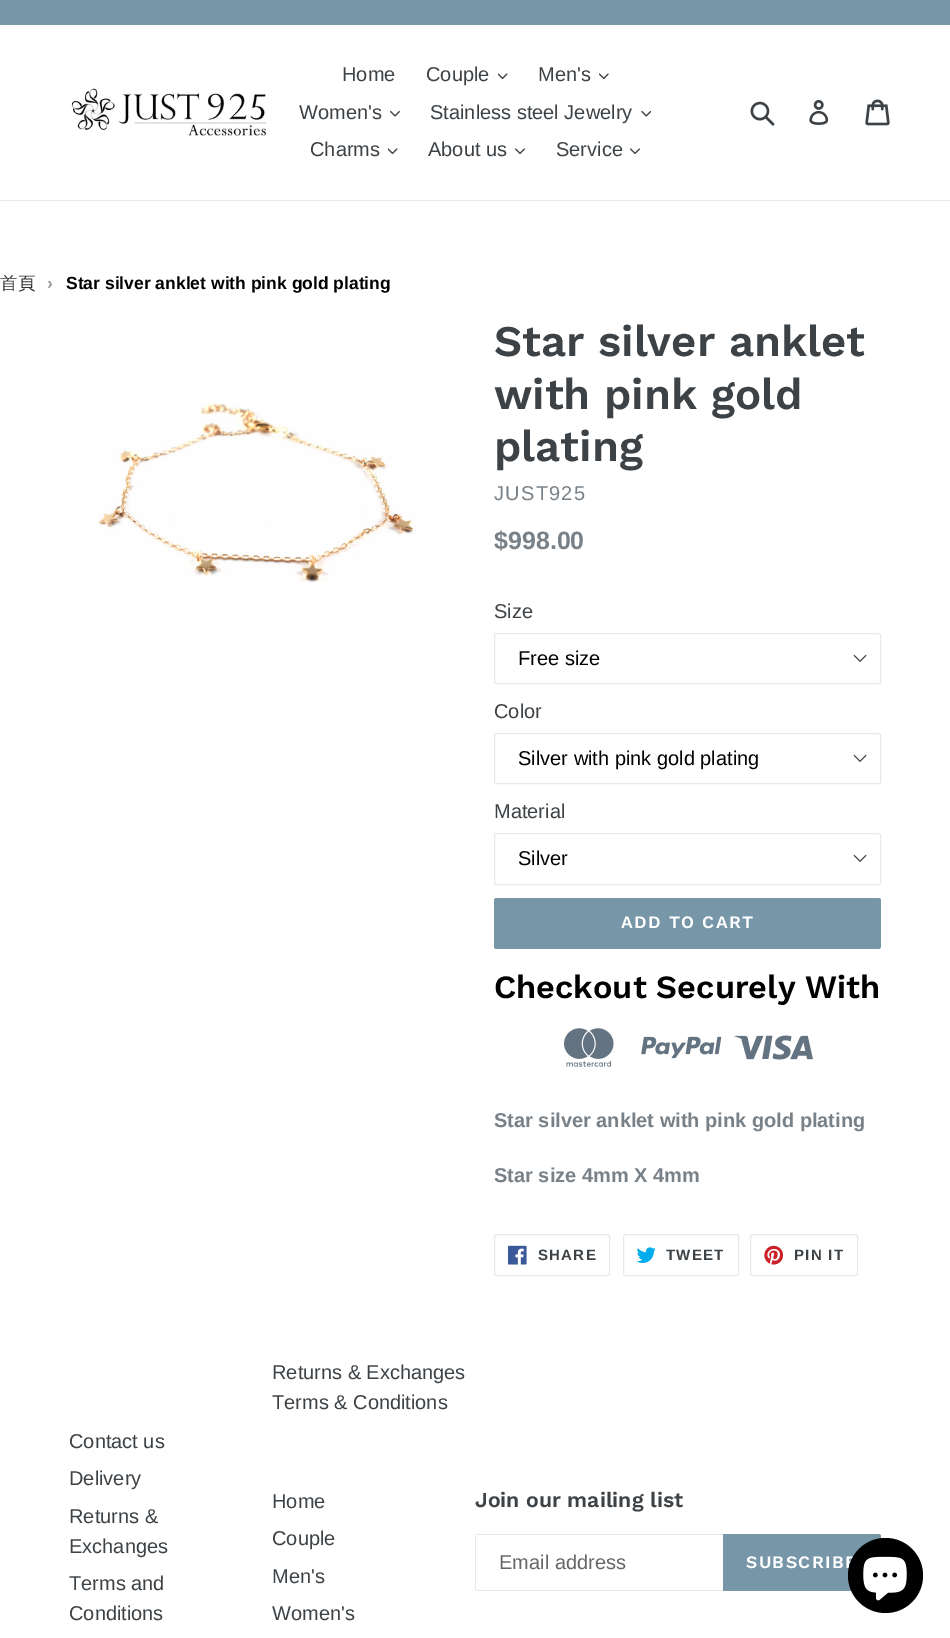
%!PS
<< /PageSize [950 1638] >> setpagedevice
/mt/moveto load def
/li/lineto load def
/ct/curveto load def
/cp/closepath load def
/fl/fill load def
/st/stroke load def
/co { dup -16 bitshift 255 div exch dup -8 bitshift 255 and 255 div exch 255 and 255 div setrgbcolor } def
/fn { [ exch dup neg 0 0 3 -1 roll 0 0 ] selectfont } def
/tx { co fn moveto show } def
/bx { co rectfill } def
/ci { newpath 0 360 arc closepath } def
/rr { 5 dict begin { /r /h /w /y /x } { exch def } forall
  x r add y moveto x w add y 2 copy h add r arct x w add y h add x 1 index r arct
  x y h add x y r arct x y 2 copy exch w add exch r arct closepath end } def
/im { 5 dict begin { /h /w /y /x /name } { exch def } forall
  gsave x y translate w h scale
  w h 8 [w 0 0 h 0 0] name (r) file false 3 colorimage grestore end } def
0 1638 translate 1 -1 scale
4 setmiterlimit
0 0 950 1638 16#FFFFFF bx
0 0 950 25 16#7796A8 bx
0 200 950 1 16#E8E9EB bx
(media/1.raw) 71 88 196 48 im
(media/2.raw) 498 73 10 7 im
(media/3.raw) 599 73 10 7 im
(media/4.raw) 390 110 10 7 im
(media/5.raw) 641 110 10 7 im
(media/2.raw) 388 148 10 7 im
(media/6.raw) 515 148 10 6 im
(media/6.raw) 630 148 10 6 im
(media/7.raw) 750 101 25 25 im
(media/8.raw) 809 100 20 25 im
(media/9.raw) 865 99 25 27 im
(media/10.raw) 98 403 318 180 im
(media/11.raw) 853 654 14 8 im
494.5 633.5 386 50 2 rr st
(media/11.raw) 853 754 14 8 im
494.5 733.5 386 50 2 rr st
(media/11.raw) 853 854 14 8 im
494.5 833.5 386 51 2 rr st
16#7796A8 co
494 898 387 51 2.5 rr fl
(media/12.raw) 564 1028 50 39 im
(media/13.raw) 641 1036 81 23 im
(media/14.raw) 734 1035 79 25 im
16#E8E9EB co
494.5 1234.5 115 41 2 rr st
(media/15.raw) 508 1245 19 20 im
623.5 1234.5 115 41 2 rr st
(media/16.raw) 636 1247 20 16 im
750.5 1234.5 107 41 2 rr st
(media/17.raw) 764 1245 20 20 im
476 1534 247 1 16#E8E9EB bx
476 1590 247 1 16#E8E9EB bx
475 1535 1 55 16#E8E9EB bx
16#7796A8 co
723 1534 mt 878.5 1534 li 880 1534 881 1535 881 1536.5 ct 881 1588.5 li 881 1590 880 1591 878.5 1591 ct 723 1591 li cp fl
(Home) 342 81 /LiberationSans-Regular 20 16#3D4246 tx
(Couple) 426 81 /LiberationSans-Regular 20 16#3D4246 tx
(Men's) 538 81 /LiberationSans-Regular 20 16#3D4246 tx
(Women's) 299 119 /LiberationSans-Regular 20 16#3D4246 tx
(Stainless steel Jewelry) 430 119 /LiberationSans-Regular 20 16#3D4246 tx
(Charms) 310 156 /LiberationSans-Regular 20 16#3D4246 tx
(About us) 428 156 /LiberationSans-Regular 20 16#3D4246 tx
(Service) 556 156 /LiberationSans-Regular 20 16#3D4246 tx
(首頁) 0 289 /WenQuanYiZenHei-Medium 17.5 16#333333 tx
(›) 47 289 /LiberationSans-Bold 17.5 16#999999 tx
(Star silver anklet with pink gold plating) 66 289 /LiberationSans-Bold 17.5 16#000000 tx
(Star silver anklet) 494 356 /WorkSans-SemiBold 43.75 16#3D4246 tx
(with pink gold) 494 409 /WorkSans-SemiBold 43.75 16#3D4246 tx
(plating) 494 461 /WorkSans-SemiBold 43.75 16#3D4246 tx
/LiberationSans-Regular 20 fn
16#788188 co
494 500 mt 1.25 0 (JUST925) ashow
($998.00) 494 549 /LiberationSans-Bold 25 16#788188 tx
(Size) 494 618 /LiberationSans-Regular 20 16#3D4246 tx
(Free size) 518 665 /LiberationSans-Regular 20 16#000000 tx
(Color) 494 718 /LiberationSans-Regular 20 16#3D4246 tx
(Silver with pink gold plating) 518 765 /LiberationSans-Regular 20 16#000000 tx
(Material) 494 818 /LiberationSans-Regular 20 16#3D4246 tx
(Silver) 518 865 /LiberationSans-Regular 20 16#000000 tx
/WorkSans-SemiBold 17.5 fn
16#FFFFFF co
621 928 mt 1.4 0 (ADD TO CART) ashow
(Checkout Securely With) 494 998 /WorkSans-SemiBold 32.5 16#000000 tx
(Star silver anklet with pink gold plating) 494 1127 /LiberationSans-Bold 20 16#788188 tx
(Star size 4mm X 4mm) 494 1182 /LiberationSans-Bold 20 16#788188 tx
/LiberationSans-Bold 15 fn
16#3D4246 co
538 1260 mt 1.25 0 (SHARE) ashow
666 1260 mt 1.25 0 (TWEET) ashow
794 1260 mt 1.25 0 (PIN IT) ashow
(Returns & Exchanges) 272 1379 /LiberationSans-Regular 20 16#3D4246 tx
(Terms & Conditions) 272 1409 /LiberationSans-Regular 20 16#3D4246 tx
(Contact us) 69 1448 /LiberationSans-Regular 20 16#3D4246 tx
(Delivery) 69 1485 /LiberationSans-Regular 20 16#3D4246 tx
(Returns &) 69 1523 /LiberationSans-Regular 20 16#3D4246 tx
(Exchanges) 69 1553 /LiberationSans-Regular 20 16#3D4246 tx
(Terms and) 69 1590 /LiberationSans-Regular 20 16#3D4246 tx
(Conditions) 69 1620 /LiberationSans-Regular 20 16#3D4246 tx
(Home) 272 1508 /LiberationSans-Regular 20 16#3D4246 tx
(Couple) 272 1545 /LiberationSans-Regular 20 16#3D4246 tx
(Men's) 272 1583 /LiberationSans-Regular 20 16#3D4246 tx
(Women's) 272 1620 /LiberationSans-Regular 20 16#3D4246 tx
(Join our mailing list) 475 1507 /WorkSans-SemiBold 21.25 16#3D4246 tx
(Email address) 499 1569 /LiberationSans-Regular 20 16#666666 tx
/WorkSans-SemiBold 17.5 fn
16#FFFFFF co
746 1568 mt 1.4 0 (SUBSCRIBE) ashow
16#000000 co
885.5 1575.5 37.5 ci fl
(media/18.raw) 863 1556 44 45 im
showpage
